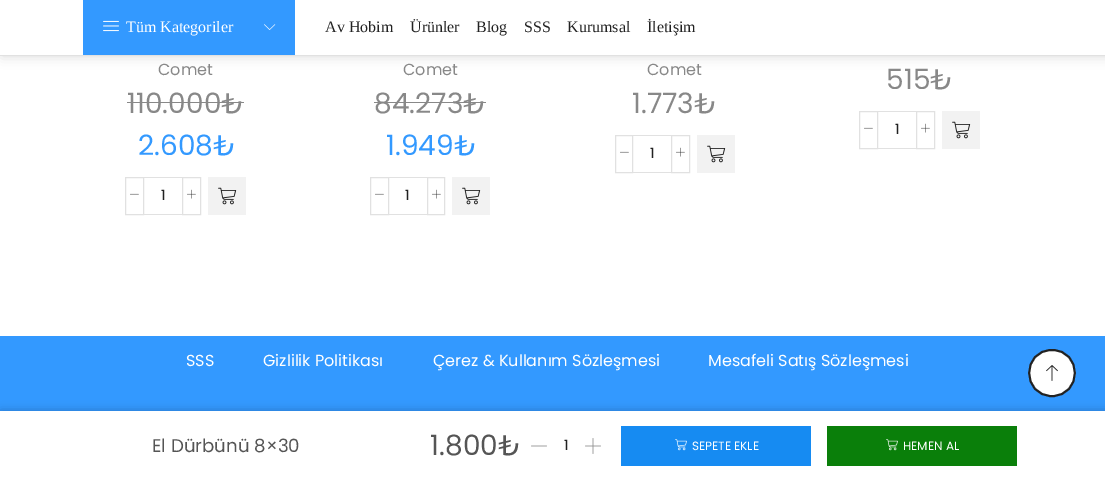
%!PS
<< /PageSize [1105 481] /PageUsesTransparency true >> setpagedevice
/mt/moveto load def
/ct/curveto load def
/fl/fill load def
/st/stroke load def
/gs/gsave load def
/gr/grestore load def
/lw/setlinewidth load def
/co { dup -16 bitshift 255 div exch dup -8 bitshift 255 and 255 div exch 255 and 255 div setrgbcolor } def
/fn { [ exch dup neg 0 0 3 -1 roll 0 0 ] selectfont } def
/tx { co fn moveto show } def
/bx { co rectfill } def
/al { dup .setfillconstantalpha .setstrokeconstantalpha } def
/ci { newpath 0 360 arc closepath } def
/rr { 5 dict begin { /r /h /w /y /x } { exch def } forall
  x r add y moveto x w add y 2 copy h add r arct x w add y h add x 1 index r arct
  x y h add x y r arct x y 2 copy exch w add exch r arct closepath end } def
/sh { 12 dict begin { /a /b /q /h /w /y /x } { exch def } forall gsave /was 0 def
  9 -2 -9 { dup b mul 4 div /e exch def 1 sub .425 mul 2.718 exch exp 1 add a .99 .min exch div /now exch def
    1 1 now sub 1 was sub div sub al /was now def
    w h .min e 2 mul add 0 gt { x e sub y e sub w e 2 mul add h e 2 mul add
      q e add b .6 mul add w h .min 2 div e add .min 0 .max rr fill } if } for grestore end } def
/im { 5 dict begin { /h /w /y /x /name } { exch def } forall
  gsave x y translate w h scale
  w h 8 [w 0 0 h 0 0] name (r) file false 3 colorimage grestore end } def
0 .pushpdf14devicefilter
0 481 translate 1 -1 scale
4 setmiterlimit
0 0 1105 481 16#FFFFFF bx
16#000000 co
2 0 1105 56 0 6 .15 sh
0 0 1105 55 16#FFFFFF bx
0 55 1105 1 16#E1E1E1 bx
83 0 212 55 16#3399FF bx
(media/1.raw) 103 20 16 12 im
(media/2.raw) 264 24 12 6 im
127 102 117 1 16#888888 bx
16#E1E1E1 co
125.5 177.5 18 37 rectstroke
(media/3.raw) 130 193 9 2 im
144 177 38 1 16#E1E1E1 bx
144 214 38 1 16#E1E1E1 bx
182.5 177.5 18 37 rectstroke
(media/4.raw) 187 189 9 10 im
208 177 38 38 16#F2F2F2 bx
(media/5.raw) 218 187 19 18 im
374 102 112 1 16#888888 bx
16#E1E1E1 co
370.5 177.5 18 37 rectstroke
(media/3.raw) 375 193 9 2 im
389 177 38 1 16#E1E1E1 bx
389 214 38 1 16#E1E1E1 bx
427.5 177.5 17 37 rectstroke
(media/4.raw) 432 189 9 10 im
452 177 38 38 16#F2F2F2 bx
(media/5.raw) 462 187 19 18 im
16#E1E1E1 co
615.5 135.5 17 37 rectstroke
(media/3.raw) 620 151 9 2 im
633 135 38 1 16#E1E1E1 bx
633 172 38 1 16#E1E1E1 bx
671.5 135.5 18 37 rectstroke
(media/4.raw) 676 147 9 10 im
697 135 38 38 16#F2F2F2 bx
(media/5.raw) 707 145 19 18 im
16#E1E1E1 co
859.5 111.5 18 37 rectstroke
(media/3.raw) 864 127 9 2 im
878 111 38 1 16#E1E1E1 bx
878 148 38 1 16#E1E1E1 bx
916.5 111.5 18 37 rectstroke
(media/4.raw) 921 123 9 10 im
942 111 38 38 16#F2F2F2 bx
(media/5.raw) 952 121 19 18 im
0 336 1105 75 16#3399FF bx
16#FFFFFF co
1052 373 22.5 ci gs fl gr
16#E1E1E1 co
st
16#000000 co
1 412 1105 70 0 5 .3 sh
16#222222 co
1.9 lw
1052 350 mt 1082.5 350 1082.5 396 1052 396 ct 1021.5 396 1021.5 350 1052 350 ct st
(media/6.raw) 1046 365 12 16 im
0 411 1105 70 16#FFFFFF bx
(media/7.raw) 531 445 16 2 im
(media/8.raw) 585 438 16 16 im
621 426 190 40 16#168BF2 bx
(media/9.raw) 675 439 12 12 im
827 426 190 40 16#0A7F0A bx
(media/10.raw) 886 439 12 12 im
(Tüm Kategoriler) 126 32 /LiberationSerif-Regular 16 16#FFFFFF tx
(Av Hobim) 325 32 /LiberationSerif-Regular 16 16#222222 tx
(Ürünler) 410 32 /LiberationSerif-Regular 16 16#222222 tx
(Blog) 476 32 /LiberationSerif-Regular 16 16#222222 tx
(SSS) 524 32 /LiberationSerif-Regular 16 16#222222 tx
(Kurumsal) 567 32 /LiberationSerif-Regular 16 16#222222 tx
(İletişim) 647 32 /LiberationSerif-Regular 16 16#222222 tx
(Comet) 158 75 /Poppins-Regular 16 16#888888 tx
(110.000₺) 127 113 /Poppins-Regular 28 16#888888 tx
(2.608₺) 138 155 /Poppins-Regular 28 16#3399FF tx
(1) 161 200 /Poppins-Regular 14 16#222222 tx
(Comet) 403 75 /Poppins-Regular 16 16#888888 tx
(84.273₺) 374 113 /Poppins-Regular 28 16#888888 tx
(1.949₺) 386 155 /Poppins-Regular 28 16#3399FF tx
(1) 405 200 /Poppins-Regular 14 16#222222 tx
(Comet) 647 75 /Poppins-Regular 16 16#888888 tx
(1.773₺) 632 113 /Poppins-Regular 28 16#888888 tx
(1) 650 158 /Poppins-Regular 14 16#222222 tx
(515₺) 886 89 /Poppins-Regular 28 16#888888 tx
(1) 895 134 /Poppins-Regular 14 16#222222 tx
(SSS) 186 366 /Poppins-Regular 16 16#FFFFFF tx
(Gizlilik Politikası) 263 366 /Poppins-Regular 16 16#FFFFFF tx
(Çerez & Kullanım Sözleşmesi) 433 366 /Poppins-Regular 16 16#FFFFFF tx
(Mesafeli Satış Sözleşmesi) 708 366 /Poppins-Regular 16 16#FFFFFF tx
(El Dürbünü 8×30) 152 452 /Poppins-Regular 18.25 16#555555 tx
(1.800₺) 430 455 /Poppins-Regular 28 16#555555 tx
(1) 564 450 /Poppins-Regular 14 16#222222 tx
(SEPETE EKLE) 692 450 /Poppins-Regular 12 16#FFFFFF tx
(HEMEN AL) 903 450 /Poppins-Regular 12 16#FFFFFF tx
.poppdf14devicefilter showpage
